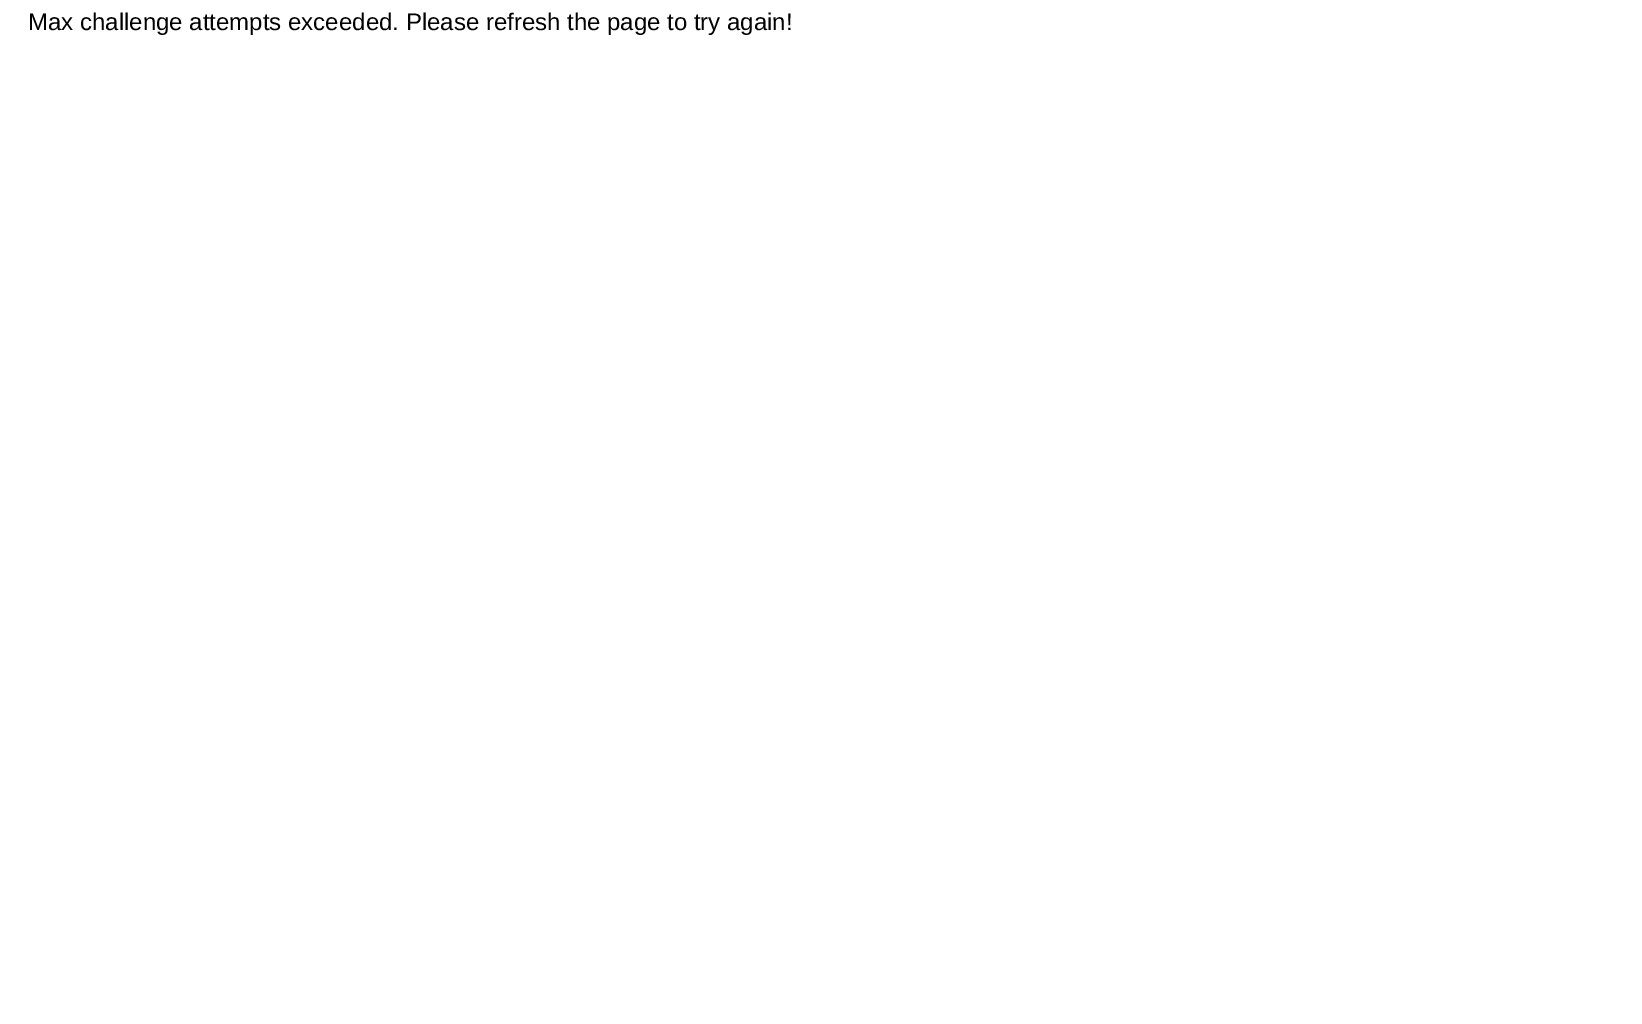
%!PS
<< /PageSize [1642 1024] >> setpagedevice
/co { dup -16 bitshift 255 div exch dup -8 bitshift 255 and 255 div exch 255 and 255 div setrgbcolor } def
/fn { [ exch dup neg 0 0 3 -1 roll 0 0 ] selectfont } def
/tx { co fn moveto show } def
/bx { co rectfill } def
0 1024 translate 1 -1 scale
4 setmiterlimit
0 0 1642 1024 16#FFFFFF bx
(Max challenge attempts exceeded. Please refresh the page to try again!) 28 30 /LiberationSans-Regular 24 16#000000 tx
showpage
